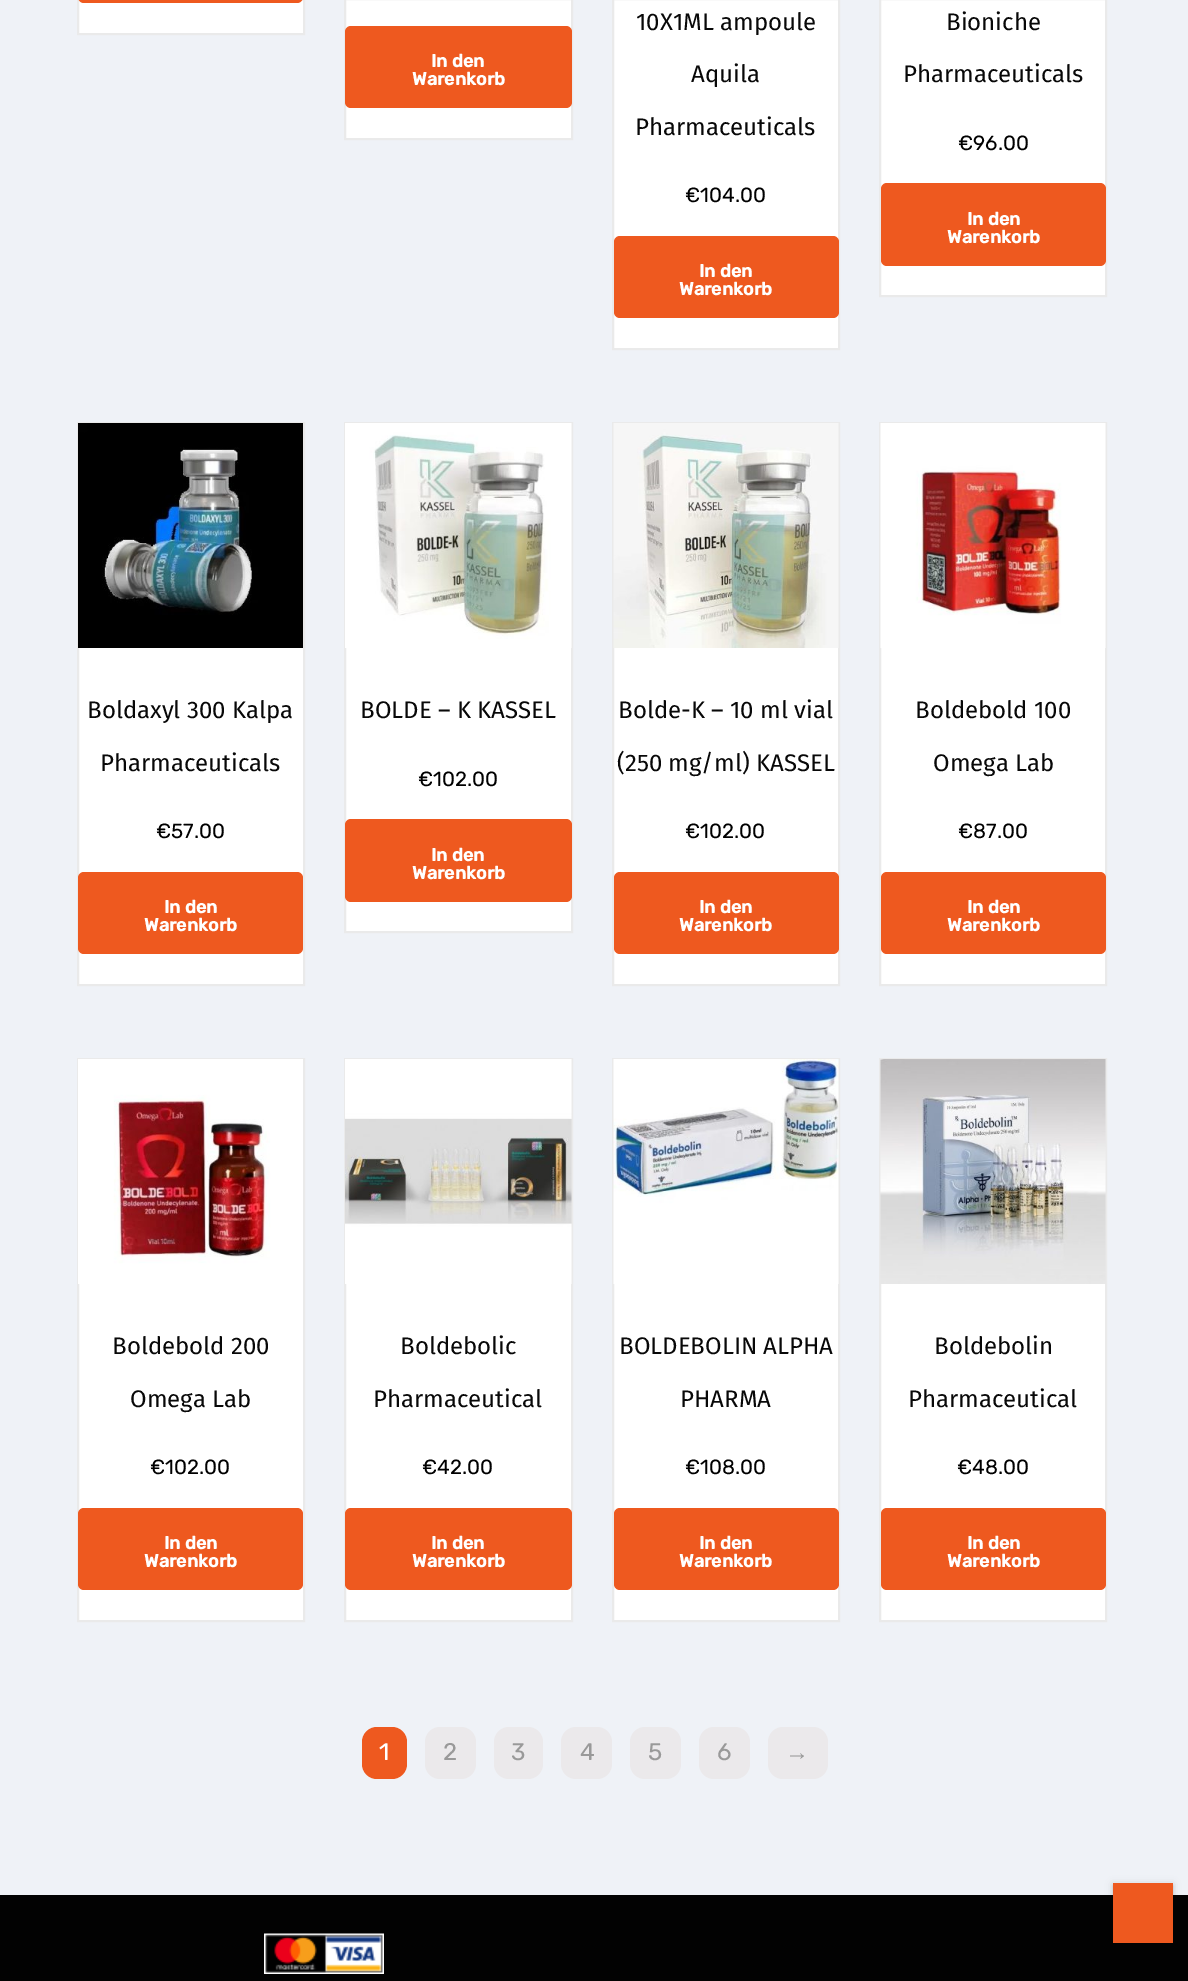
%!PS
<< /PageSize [1188 1981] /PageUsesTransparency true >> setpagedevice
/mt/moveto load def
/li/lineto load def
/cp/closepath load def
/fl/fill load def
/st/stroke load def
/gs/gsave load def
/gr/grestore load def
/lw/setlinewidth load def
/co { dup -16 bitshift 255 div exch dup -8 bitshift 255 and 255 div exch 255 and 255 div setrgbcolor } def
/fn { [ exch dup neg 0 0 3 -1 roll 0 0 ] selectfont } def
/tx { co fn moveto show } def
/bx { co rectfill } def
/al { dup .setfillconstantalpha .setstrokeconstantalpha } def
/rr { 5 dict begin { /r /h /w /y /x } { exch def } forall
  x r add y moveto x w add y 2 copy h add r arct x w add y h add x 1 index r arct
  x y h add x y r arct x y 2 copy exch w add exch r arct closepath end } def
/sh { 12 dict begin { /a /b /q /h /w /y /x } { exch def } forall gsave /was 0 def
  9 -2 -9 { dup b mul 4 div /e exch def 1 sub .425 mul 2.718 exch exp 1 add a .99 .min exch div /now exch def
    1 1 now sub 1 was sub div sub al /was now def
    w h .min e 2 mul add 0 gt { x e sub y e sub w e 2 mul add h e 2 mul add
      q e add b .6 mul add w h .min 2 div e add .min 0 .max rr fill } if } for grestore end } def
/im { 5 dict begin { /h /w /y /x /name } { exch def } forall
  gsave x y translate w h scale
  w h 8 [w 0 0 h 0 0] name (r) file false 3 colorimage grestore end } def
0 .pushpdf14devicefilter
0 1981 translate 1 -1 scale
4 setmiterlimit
0 0 1188 1981 16#EFF2F7 bx
16#FFFFFF co
78 -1 mt 304 -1 li 304 34 li 78 34 li cp gs fl gr
16#EAEAEA co
2 lw
st
16#EE591F co
78 -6 225 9 6 rr fl
16#FFFFFF co
345 -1 mt 572 -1 li 572 139 li 345 139 li cp gs fl gr
16#EAEAEA co
st
16#EE591F co
345 26 227 82 6 rr fl
16#FFFFFF co
613 -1 mt 839 -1 li 839 349 li 613 349 li cp gs fl gr
16#EAEAEA co
st
16#EE591F co
614 236 225 82 6 rr fl
16#FFFFFF co
880 -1 mt 1106 -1 li 1106 296 li 880 296 li cp gs fl gr
16#EAEAEA co
st
16#EE591F co
881 183 225 83 6 rr fl
79 648 224 336 16#FFFFFF bx
16#EAEAEA co
78 423 226 562 rectstroke
(media/1.raw) 78 423 225 225 im
16#EE591F co
78 872 225 82 6 rr fl
346 648 225 283 16#FFFFFF bx
16#EAEAEA co
345 423 227 509 rectstroke
(media/2.raw) 345 423 227 225 im
16#EE591F co
345 819 227 83 6 rr fl
614 648 224 336 16#FFFFFF bx
16#EAEAEA co
613 423 226 562 rectstroke
(media/3.raw) 613 423 226 225 im
16#EE591F co
614 872 225 82 6 rr fl
881 648 224 336 16#FFFFFF bx
16#EAEAEA co
880 423 226 562 rectstroke
(media/4.raw) 880 423 226 225 im
16#EE591F co
881 872 225 82 6 rr fl
79 1284 224 336 16#FFFFFF bx
16#EAEAEA co
78 1059 226 562 rectstroke
(media/5.raw) 78 1059 225 225 im
16#EE591F co
78 1508 225 82 6 rr fl
346 1284 225 336 16#FFFFFF bx
16#EAEAEA co
345 1059 227 562 rectstroke
(media/6.raw) 345 1059 227 225 im
16#EE591F co
345 1508 227 82 6 rr fl
614 1284 224 336 16#FFFFFF bx
16#EAEAEA co
613 1059 226 562 rectstroke
(media/7.raw) 613 1059 226 225 im
16#EE591F co
614 1508 225 82 6 rr fl
881 1284 224 336 16#FFFFFF bx
16#EAEAEA co
880 1059 226 562 rectstroke
(media/8.raw) 880 1059 226 225 im
16#EE591F co
881 1508 225 82 6 rr fl
362 1727 45 52 15 rr fl
16#EBE9EB co
425 1727 51 52 15 rr fl
494 1727 49 52 15 rr fl
561 1727 51 52 15 rr fl
630 1727 51 52 15 rr fl
699 1727 51 52 15 rr fl
768 1727 60 52 15 rr fl
0 1895 1188 86 16#020202 bx
(media/9.raw) 264 1933 120 41 im
16#000000 co
1113 1884 60 60 0 4 .12 sh
1113 1886 60 60 0 1.5 .14 sh
1113 1883 60 60 16#EE591F bx
(In den) 431 67 /Rubik-Bold 18 16#FFFFFF tx
(Warenkorb) 412 85 /Rubik-Bold 18 16#FFFFFF tx
(10X1ML ampoule) 636 30 /FiraSans-Regular 24 16#080808 tx
(Aquila) 691 82 /FiraSans-Regular 24 16#080808 tx
(Pharmaceuticals) 635 135 /FiraSans-Regular 24 16#080808 tx
(€104.00) 685 202 /Rubik-Regular 20.5 16#000000 tx
(In den) 699 277 /Rubik-Bold 18 16#FFFFFF tx
(Warenkorb) 679 295 /Rubik-Bold 18 16#FFFFFF tx
(Bioniche) 946 30 /FiraSans-Regular 24 16#080808 tx
(Pharmaceuticals) 903 82 /FiraSans-Regular 24 16#080808 tx
(€96.00) 958 150 /Rubik-Regular 20.5 16#000000 tx
(In den) 967 225 /Rubik-Bold 18 16#FFFFFF tx
(Warenkorb) 947 243 /Rubik-Bold 18 16#FFFFFF tx
(Boldaxyl 300 Kalpa) 87 718 /FiraSans-Regular 24 16#080808 tx
(Pharmaceuticals) 100 771 /FiraSans-Regular 24 16#080808 tx
(€57.00) 156 838 /Rubik-Regular 20.5 16#000000 tx
(In den) 164 913 /Rubik-Bold 18 16#FFFFFF tx
(Warenkorb) 144 931 /Rubik-Bold 18 16#FFFFFF tx
(BOLDE – K KASSEL) 360 718 /FiraSans-Regular 24 16#080808 tx
(€102.00) 418 786 /Rubik-Regular 20.5 16#000000 tx
(In den) 431 861 /Rubik-Bold 18 16#FFFFFF tx
(Warenkorb) 412 879 /Rubik-Bold 18 16#FFFFFF tx
(Bolde-K – 10 ml vial) 618 718 /FiraSans-Regular 24 16#080808 tx
(\(250 mg/ml\) KASSEL) 617 771 /FiraSans-Regular 24 16#080808 tx
(€102.00) 685 838 /Rubik-Regular 20.5 16#000000 tx
(In den) 699 913 /Rubik-Bold 18 16#FFFFFF tx
(Warenkorb) 679 931 /Rubik-Bold 18 16#FFFFFF tx
(Boldebold 100) 915 718 /FiraSans-Regular 24 16#080808 tx
(Omega Lab) 933 771 /FiraSans-Regular 24 16#080808 tx
(€87.00) 958 838 /Rubik-Regular 20.5 16#000000 tx
(In den) 967 913 /Rubik-Bold 18 16#FFFFFF tx
(Warenkorb) 947 931 /Rubik-Bold 18 16#FFFFFF tx
(Boldebold 200) 112 1354 /FiraSans-Regular 24 16#080808 tx
(Omega Lab) 130 1407 /FiraSans-Regular 24 16#080808 tx
(€102.00) 150 1474 /Rubik-Regular 20.5 16#000000 tx
(In den) 164 1549 /Rubik-Bold 18 16#FFFFFF tx
(Warenkorb) 144 1567 /Rubik-Bold 18 16#FFFFFF tx
(Boldebolic) 400 1354 /FiraSans-Regular 24 16#080808 tx
(Pharmaceutical) 373 1407 /FiraSans-Regular 24 16#080808 tx
(€42.00) 422 1474 /Rubik-Regular 20.5 16#000000 tx
(In den) 431 1549 /Rubik-Bold 18 16#FFFFFF tx
(Warenkorb) 412 1567 /Rubik-Bold 18 16#FFFFFF tx
(BOLDEBOLIN ALPHA) 619 1354 /FiraSans-Regular 24 16#080808 tx
(PHARMA) 680 1407 /FiraSans-Regular 24 16#080808 tx
(€108.00) 685 1474 /Rubik-Regular 20.5 16#000000 tx
(In den) 699 1549 /Rubik-Bold 18 16#FFFFFF tx
(Warenkorb) 679 1567 /Rubik-Bold 18 16#FFFFFF tx
(Boldebolin) 934 1354 /FiraSans-Regular 24 16#080808 tx
(Pharmaceutical) 908 1407 /FiraSans-Regular 24 16#080808 tx
(€48.00) 957 1474 /Rubik-Regular 20.5 16#000000 tx
(In den) 967 1549 /Rubik-Bold 18 16#FFFFFF tx
(Warenkorb) 947 1567 /Rubik-Bold 18 16#FFFFFF tx
(1) 379 1760 /Rubik-Regular 24 16#FFFFFF tx
(2) 443 1760 /Rubik-Regular 24 16#999999 tx
(3) 511 1760 /Rubik-Regular 24 16#999999 tx
(4) 580 1760 /Rubik-Regular 24 16#999999 tx
(5) 648 1760 /Rubik-Regular 24 16#999999 tx
(6) 717 1760 /Rubik-Regular 24 16#999999 tx
(→) 785 1760 /LiberationSans-Regular 24 16#999999 tx
.poppdf14devicefilter showpage
